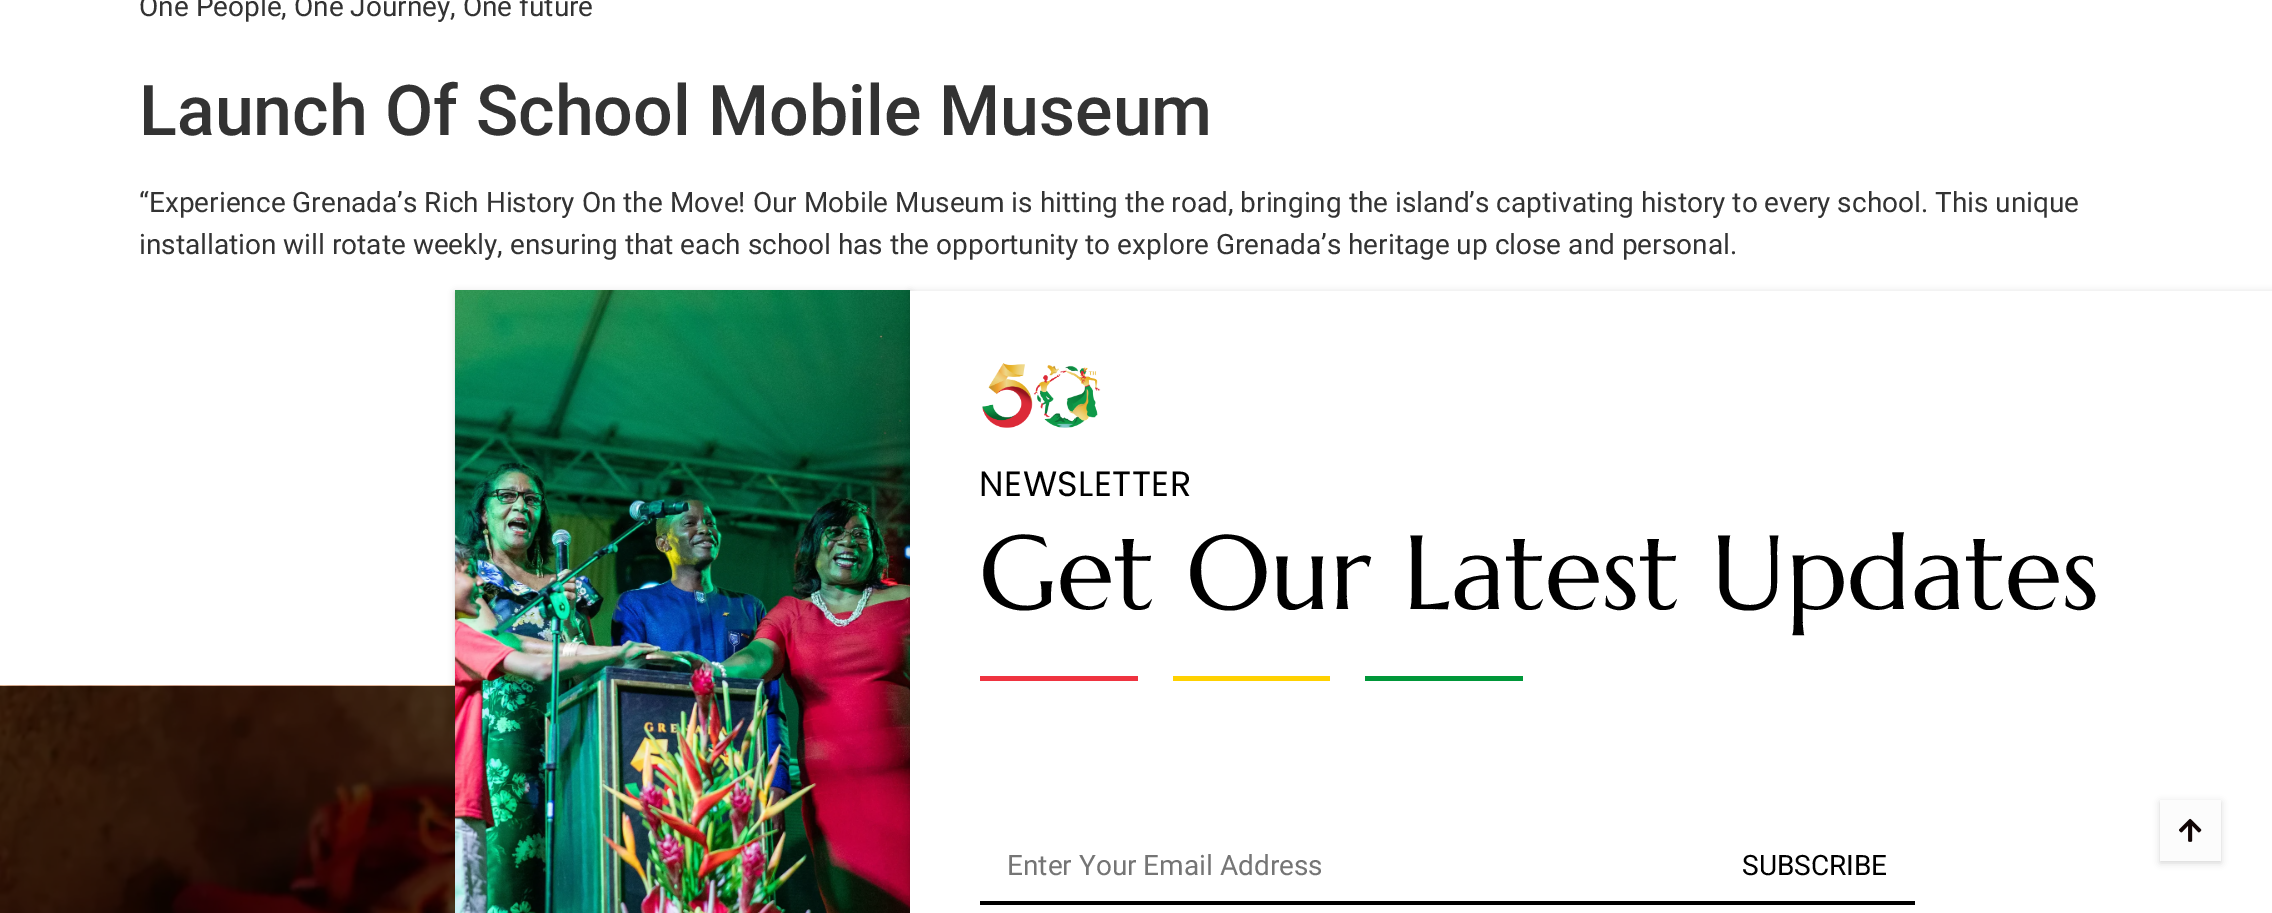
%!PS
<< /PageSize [2272 913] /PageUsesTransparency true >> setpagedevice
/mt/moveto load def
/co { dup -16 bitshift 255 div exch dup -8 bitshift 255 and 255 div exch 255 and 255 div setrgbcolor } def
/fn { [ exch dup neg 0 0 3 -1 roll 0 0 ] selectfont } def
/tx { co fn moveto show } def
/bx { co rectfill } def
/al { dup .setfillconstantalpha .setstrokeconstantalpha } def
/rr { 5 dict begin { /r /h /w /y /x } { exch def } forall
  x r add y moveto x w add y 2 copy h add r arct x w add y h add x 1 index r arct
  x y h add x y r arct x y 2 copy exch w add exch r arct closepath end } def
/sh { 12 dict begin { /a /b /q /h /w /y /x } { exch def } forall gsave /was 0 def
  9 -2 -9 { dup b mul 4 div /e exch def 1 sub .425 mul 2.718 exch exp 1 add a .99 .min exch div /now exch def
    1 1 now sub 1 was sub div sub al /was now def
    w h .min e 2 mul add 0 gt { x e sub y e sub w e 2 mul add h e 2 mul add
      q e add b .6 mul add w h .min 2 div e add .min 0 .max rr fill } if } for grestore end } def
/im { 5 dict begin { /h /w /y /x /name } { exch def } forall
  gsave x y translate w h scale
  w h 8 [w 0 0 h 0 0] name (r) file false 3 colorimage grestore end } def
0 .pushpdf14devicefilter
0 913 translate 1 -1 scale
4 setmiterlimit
0 0 2272 913 16#FFFFFF bx
(media/3.raw) 0 685 455 228 im
16#000000 co
455 292 455 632 0 3.5 .16 sh
(media/1.raw) 455 290 455 623 im
910 292 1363 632 0 3.5 .16 sh
910 291 1362 622 16#FFFFFF bx
(media/2.raw) 982 363 119 65 im
980 676 158 5 16#EF3340 bx
1173 676 157 5 16#FFD100 bx
1365 676 158 5 16#009739 bx
980 901 935 4 16#000000 bx
2160 802 61 61 0 3.5 .16 sh
2160 800 61 61 16#FCFCFC bx
(media/4.raw) 2179 818 23 24 im
(One People, One Journey, One future) 139 16 /Roboto-Regular 28 16#333333 tx
(Launch Of School Mobile Museum) 139 135 /Roboto-Medium 70 16#333333 tx
(“Experience Grenada’s Rich History On the Move! Our Mobile Museum is hitting the road, bringing the island’s captivating history to every school. This unique) 139 212 /Roboto-Regular 28 16#333333 tx
(installation will rotate weekly, ensuring that each school has the opportunity to explore Grenada’s heritage up close and personal.) 139 254 /Roboto-Regular 28 16#333333 tx
/Poppins-Regular 35 fn
16#000000 co
979 496 mt .5 0 (NEWSLETTER) ashow
(Get Our Latest Updates) 979 609 /Marcellus-Regular 105 16#000000 tx
(Enter Your Email Address) 1007 875 /Roboto-Regular 28 16#757575 tx
(SUBSCRIBE) 1742 875 /Roboto-Regular 28 16#000000 tx
.poppdf14devicefilter showpage
